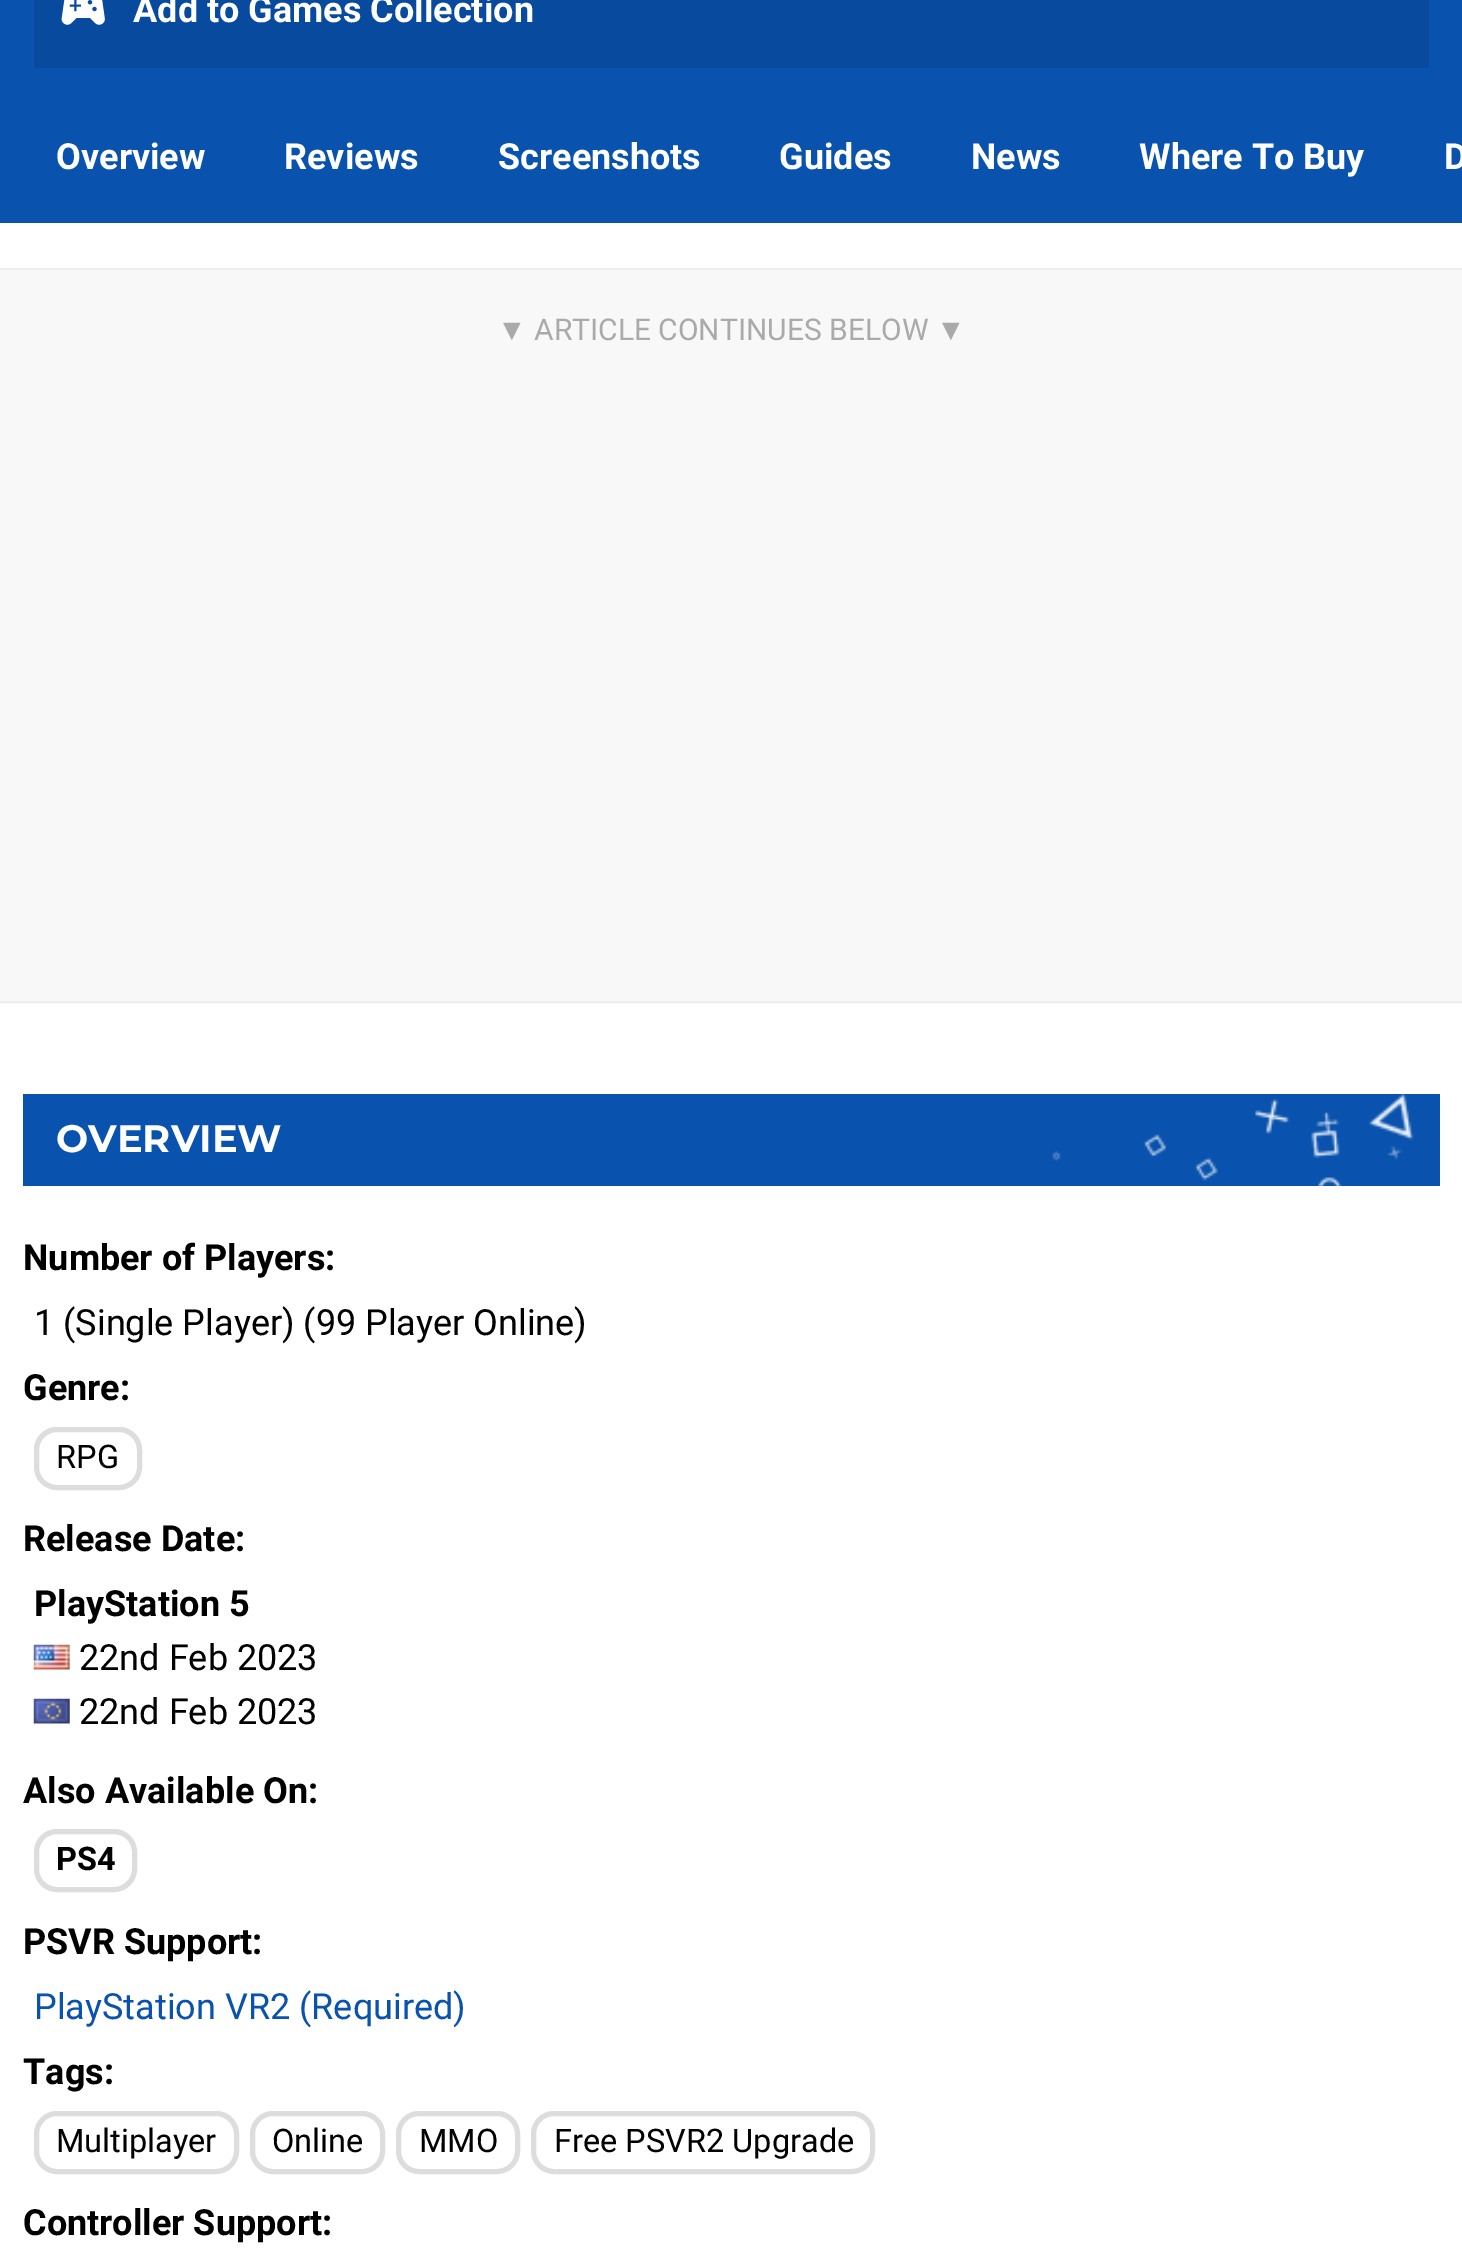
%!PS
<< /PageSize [1462 2250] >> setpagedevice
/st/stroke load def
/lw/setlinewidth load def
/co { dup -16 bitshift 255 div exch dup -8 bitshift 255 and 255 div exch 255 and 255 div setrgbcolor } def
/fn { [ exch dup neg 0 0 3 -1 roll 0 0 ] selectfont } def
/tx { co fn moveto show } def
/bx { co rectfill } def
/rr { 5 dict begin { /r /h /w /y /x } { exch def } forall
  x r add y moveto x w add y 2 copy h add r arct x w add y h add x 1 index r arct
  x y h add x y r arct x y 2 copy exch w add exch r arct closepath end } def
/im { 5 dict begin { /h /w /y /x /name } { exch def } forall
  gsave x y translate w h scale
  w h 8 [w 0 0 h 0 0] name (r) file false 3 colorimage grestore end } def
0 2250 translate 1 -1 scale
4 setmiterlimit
0 0 1462 2250 16#FFFFFF bx
0 0 1462 223 16#0952AE bx
34 0 1395 68 16#084A9D bx
(media/1.raw) 61 0 44 25 im
0 270 1462 734 16#F8F8F8 bx
0 268 1462 2 16#EEEEEE bx
0 1001 1462 2 16#EEEEEE bx
23 1094 1417 92 16#0952AE bx
(media/2.raw) 1052 1094 362 92 im
16#DDDDDD co
5 lw
36.5 1429.5 103 58 20.5 rr st
(media/3.raw) 33 1644 37 26 im
(media/4.raw) 33 1698 37 26 im
36.5 1831.5 98 58 20.5 rr st
36.5 2113.5 200 58 20.5 rr st
252.5 2113.5 130 58 20.5 rr st
398.5 2113.5 119 58 20.5 rr st
533.5 2113.5 339 58 20.5 rr st
(Add to Games Collection) 133 22 /Roboto-Bold 36 16#FFFFFF tx
(Overview) 56 169 /Roboto-Bold 36 16#FFFFFF tx
(Reviews) 284 169 /Roboto-Bold 36 16#FFFFFF tx
(Screenshots) 498 169 /Roboto-Bold 36 16#FFFFFF tx
(Guides) 779 169 /Roboto-Bold 36 16#FFFFFF tx
(News) 971 169 /Roboto-Bold 36 16#FFFFFF tx
(Where To Buy) 1139 169 /Roboto-Bold 36 16#FFFFFF tx
(D) 1444 169 /Roboto-Bold 36 16#FFFFFF tx
(▼) 497 340 /LiberationSans-Regular 30 16#AAAAAA tx
(ARTICLE CONTINUES BELOW) 534 340 /Roboto-Regular 30 16#AAAAAA tx
(▼) 936 340 /LiberationSans-Regular 30 16#AAAAAA tx
(OVERVIEW) 56 1152 /Montserrat-Bold 38.25 16#FFFFFF tx
(Number of Players:) 23 1270 /Roboto-Bold 36 16#000000 tx
(1 \(Single Player\) \(99 Player Online\)) 34 1335 /Roboto-Regular 36 16#000000 tx
(Genre:) 23 1400 /Roboto-Bold 36 16#000000 tx
(RPG) 56 1468 /Roboto-Regular 32.5 16#000000 tx
(Release Date:) 23 1551 /Roboto-Bold 36 16#000000 tx
(PlayStation 5) 34 1616 /Roboto-Bold 36 16#000000 tx
(22nd Feb 2023) 79 1670 /Roboto-Regular 36 16#000000 tx
(22nd Feb 2023) 79 1724 /Roboto-Regular 36 16#000000 tx
(Also Available On:) 23 1803 /Roboto-Bold 36 16#000000 tx
(PS4) 56 1870 /Roboto-Bold 32.5 16#000000 tx
(PSVR Support:) 23 1954 /Roboto-Bold 36 16#000000 tx
(PlayStation VR2 \(Required\)) 34 2019 /Roboto-Regular 36 16#0952AE tx
(Tags:) 23 2084 /Roboto-Bold 36 16#000000 tx
(Multiplayer) 56 2152 /Roboto-Regular 32.5 16#000000 tx
(Online) 272 2152 /Roboto-Regular 32.5 16#000000 tx
(MMO) 419 2152 /Roboto-Regular 32.5 16#000000 tx
(Free PSVR2 Upgrade) 554 2152 /Roboto-Regular 32.5 16#000000 tx
(Controller Support:) 23 2235 /Roboto-Bold 36 16#000000 tx
showpage
